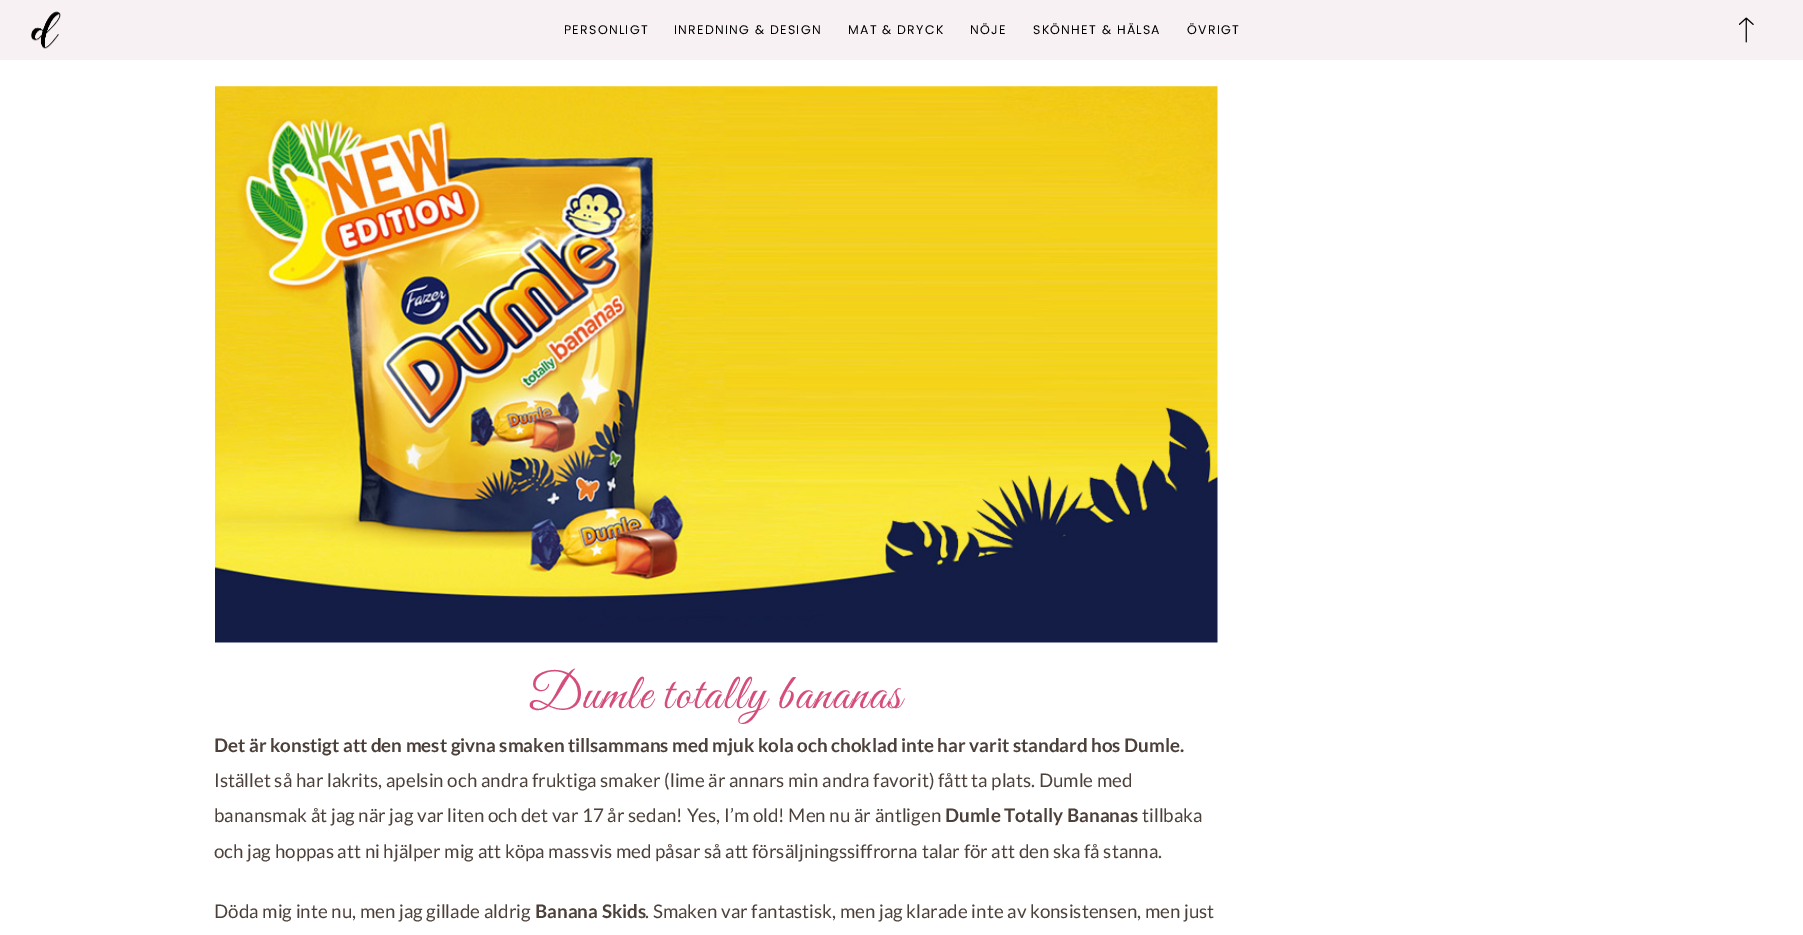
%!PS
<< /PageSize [1803 935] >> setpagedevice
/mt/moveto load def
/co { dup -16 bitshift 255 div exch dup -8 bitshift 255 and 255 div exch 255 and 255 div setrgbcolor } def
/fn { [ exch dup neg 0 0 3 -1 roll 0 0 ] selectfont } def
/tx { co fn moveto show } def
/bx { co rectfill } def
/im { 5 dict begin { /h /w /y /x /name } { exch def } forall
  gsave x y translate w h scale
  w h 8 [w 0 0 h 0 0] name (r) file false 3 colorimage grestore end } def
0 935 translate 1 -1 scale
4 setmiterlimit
0 0 1803 935 16#FFFFFF bx
0 0 1803 60 16#F8F1F4 bx
(media/1.raw) 31 11 30 38 im
(media/2.raw) 1739 17 15 26 im
(media/3.raw) 215 86 1003 557 im
/Poppins-Regular 12.5 fn
16#020202 co
564 34 mt 1.25 0 (PERSONLIGT) ashow
674 34 mt 1.25 0 (INREDNING & DESIGN) ashow
848 34 mt 1.25 0 (MAT & DRYCK) ashow
970 34 mt 1.25 0 (NÖJE) ashow
1033 34 mt 1.25 0 (SKÖNHET & HÄLSA) ashow
1187 34 mt 1.25 0 (ÖVRIGT) ashow
/GreatVibes-Regular 50 fn
16#D54D7B co
528 708 mt 1.25 0 (Dumle totally bananas) ashow
(Det är konstigt att den mest givna smaken tillsammans med mjuk kola och choklad inte har varit standard hos Dumle.) 214 752 /Lato-Bold 18.75 16#4C403A tx
(Istället så har lakrits, apelsin och andra fruktiga smaker \(lime är annars min andra favorit\) fått ta plats. Dumle med) 214 787 /Lato-Regular 18.75 16#4C403A tx
(banansmak åt jag när jag var liten och det var 17 år sedan! Yes, I’m old! Men nu är äntligen) 214 822 /Lato-Regular 18.75 16#4C403A tx
(Dumle Totally Bananas) 945 822 /Lato-Bold 18.75 16#4C403A tx
(tillbaka) 1142 822 /Lato-Regular 18.75 16#4C403A tx
(och jag hoppas att ni hjälper mig att köpa massvis med påsar så att försäljningssiffrorna talar för att den ska få stanna.) 214 858 /Lato-Regular 18.75 16#4C403A tx
(Döda mig inte nu, men jag gillade aldrig) 214 918 /Lato-Regular 18.75 16#4C403A tx
(Banana Skids) 535 918 /Lato-Bold 18.75 16#4C403A tx
(. Smaken var fantastisk, men jag klarade inte av konsistensen, men just) 645 918 /Lato-Regular 18.75 16#4C403A tx
showpage
